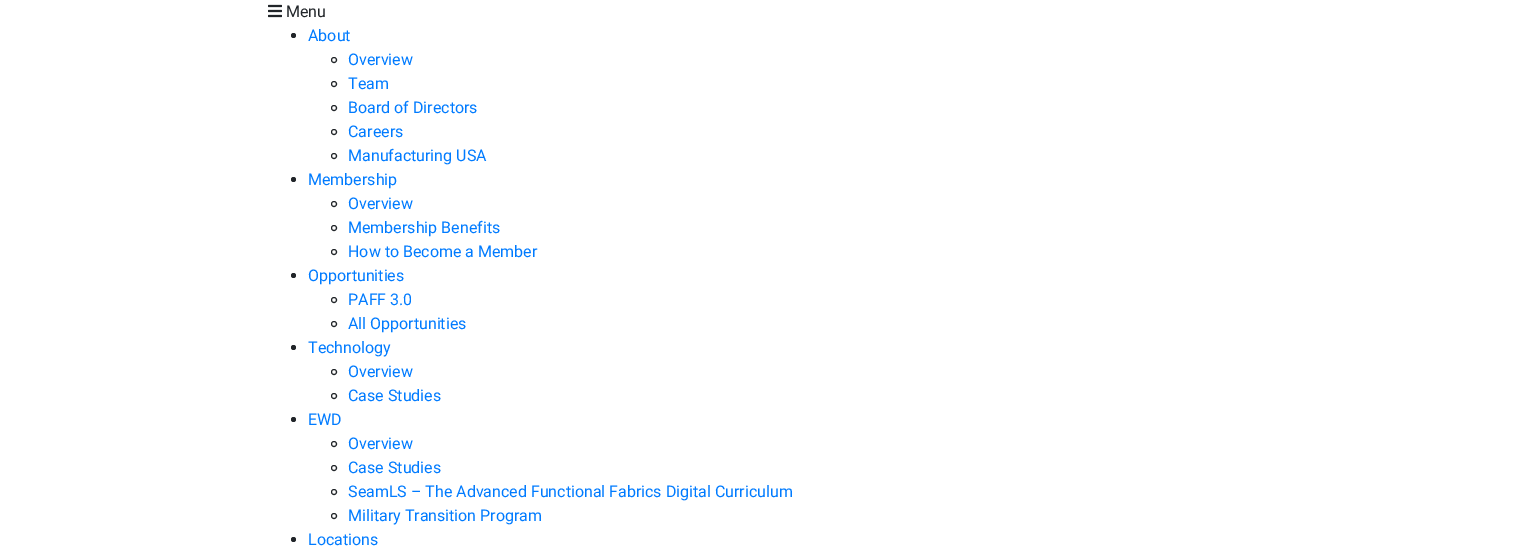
%!PS
<< /PageSize [1518 554] >> setpagedevice
/fl/fill load def
/st/stroke load def
/co { dup -16 bitshift 255 div exch dup -8 bitshift 255 and 255 div exch 255 and 255 div setrgbcolor } def
/fn { [ exch dup neg 0 0 3 -1 roll 0 0 ] selectfont } def
/tx { co fn moveto show } def
/bx { co rectfill } def
/ci { newpath 0 360 arc closepath } def
/im { 5 dict begin { /h /w /y /x /name } { exch def } forall
  gsave x y translate w h scale
  w h 8 [w 0 0 h 0 0] name (r) file false 3 colorimage grestore end } def
0 554 translate 1 -1 scale
4 setmiterlimit
0 0 1518 554 16#FFFFFF bx
(media/1.raw) 268 4 14 14 im
16#212529 co
293.5 35.5 2.5 ci fl
334 60 2.5 ci st
334 84 2.5 ci st
334 108 2.5 ci st
334 132 2.5 ci st
334 156 2.5 ci st
293.5 179.5 2.5 ci fl
334 204 2.5 ci st
334 228 2.5 ci st
334 252 2.5 ci st
293.5 275.5 2.5 ci fl
334 300 2.5 ci st
334 324 2.5 ci st
293.5 347.5 2.5 ci fl
334 372 2.5 ci st
334 396 2.5 ci st
293.5 419.5 2.5 ci fl
334 444 2.5 ci st
334 468 2.5 ci st
334 492 2.5 ci st
334 516 2.5 ci st
293.5 539.5 2.5 ci fl
(Menu) 286 17 /Roboto-Regular 16 16#212529 tx
(About) 308 41 /Roboto-Regular 16 16#007BFF tx
(Overview) 348 65 /Roboto-Regular 16 16#007BFF tx
(Team) 348 89 /Roboto-Regular 16 16#007BFF tx
(Board of Directors) 348 113 /Roboto-Regular 16 16#007BFF tx
(Careers) 348 137 /Roboto-Regular 16 16#007BFF tx
(Manufacturing USA) 348 161 /Roboto-Regular 16 16#007BFF tx
(Membership) 308 185 /Roboto-Regular 16 16#007BFF tx
(Overview) 348 209 /Roboto-Regular 16 16#007BFF tx
(Membership Benefits) 348 233 /Roboto-Regular 16 16#007BFF tx
(How to Become a Member) 348 257 /Roboto-Regular 16 16#007BFF tx
(Opportunities) 308 281 /Roboto-Regular 16 16#007BFF tx
(PAFF 3.0) 348 305 /Roboto-Regular 16 16#007BFF tx
(All Opportunities) 348 329 /Roboto-Regular 16 16#007BFF tx
(Technology) 308 353 /Roboto-Regular 16 16#007BFF tx
(Overview) 348 377 /Roboto-Regular 16 16#007BFF tx
(Case Studies) 348 401 /Roboto-Regular 16 16#007BFF tx
(EWD) 308 425 /Roboto-Regular 16 16#007BFF tx
(Overview) 348 449 /Roboto-Regular 16 16#007BFF tx
(Case Studies) 348 473 /Roboto-Regular 16 16#007BFF tx
(SeamLS – The Advanced Functional Fabrics Digital Curriculum) 348 497 /Roboto-Regular 16 16#007BFF tx
(Military Transition Program) 348 521 /Roboto-Regular 16 16#007BFF tx
(Locations) 308 545 /Roboto-Regular 16 16#007BFF tx
showpage
